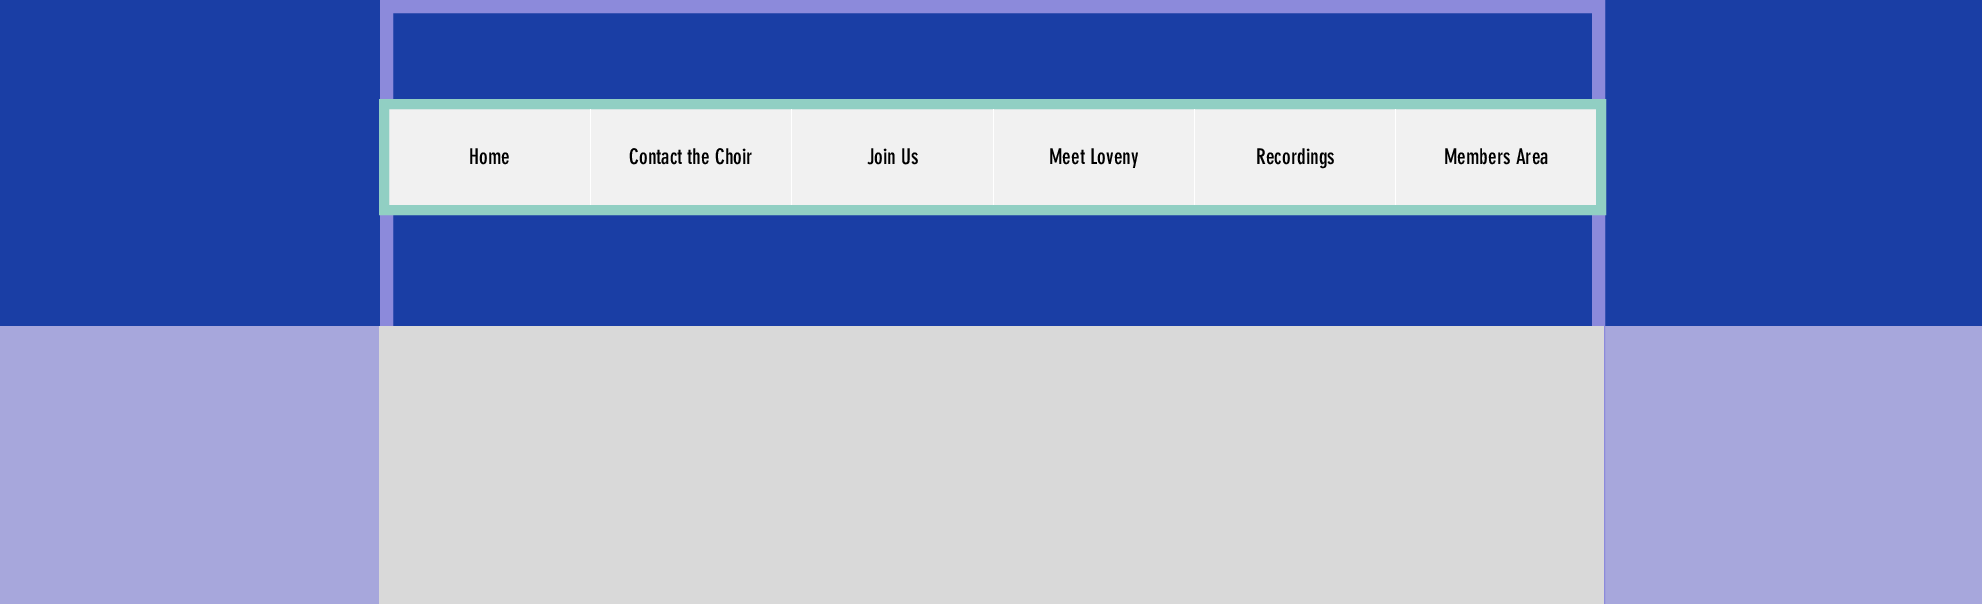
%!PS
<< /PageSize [1982 604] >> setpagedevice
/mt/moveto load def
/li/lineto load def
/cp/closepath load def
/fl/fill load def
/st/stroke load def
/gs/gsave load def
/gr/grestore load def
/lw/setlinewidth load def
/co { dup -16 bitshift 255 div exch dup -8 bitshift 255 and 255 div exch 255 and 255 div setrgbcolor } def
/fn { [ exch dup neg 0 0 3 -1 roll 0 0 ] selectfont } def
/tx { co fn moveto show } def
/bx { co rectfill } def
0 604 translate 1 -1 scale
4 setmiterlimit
0 0 1982 604 16#A7A7DC bx
0 0 1982 326 16#1A3EA5 bx
16#8C8ADB co
13 lw
386.5 6.5 1212 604 rectstroke
16#F1F1F1 co
384 104 mt 1601 104 li 1601 210 li 384 210 li cp gs fl gr
16#91CFC3 co
10 lw
st
590 109 1 96 16#FFFFFF bx
791 109 1 96 16#FFFFFF bx
993 109 1 96 16#FFFFFF bx
1194 109 1 96 16#FFFFFF bx
1395 109 1 96 16#FFFFFF bx
379 326 1225 278 16#D9D9D9 bx
(Home) 469 164 /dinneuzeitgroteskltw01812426-Regular 21.25 16#000000 tx
(Contact the Choir) 629 164 /dinneuzeitgroteskltw01812426-Regular 21.25 16#000000 tx
(Join Us) 867 164 /dinneuzeitgroteskltw01812426-Regular 21.25 16#000000 tx
(Meet Loveny) 1049 164 /dinneuzeitgroteskltw01812426-Regular 21.25 16#000000 tx
(Recordings) 1256 164 /dinneuzeitgroteskltw01812426-Regular 21.25 16#000000 tx
(Members Area) 1444 164 /dinneuzeitgroteskltw01812426-Regular 21.25 16#000000 tx
showpage
